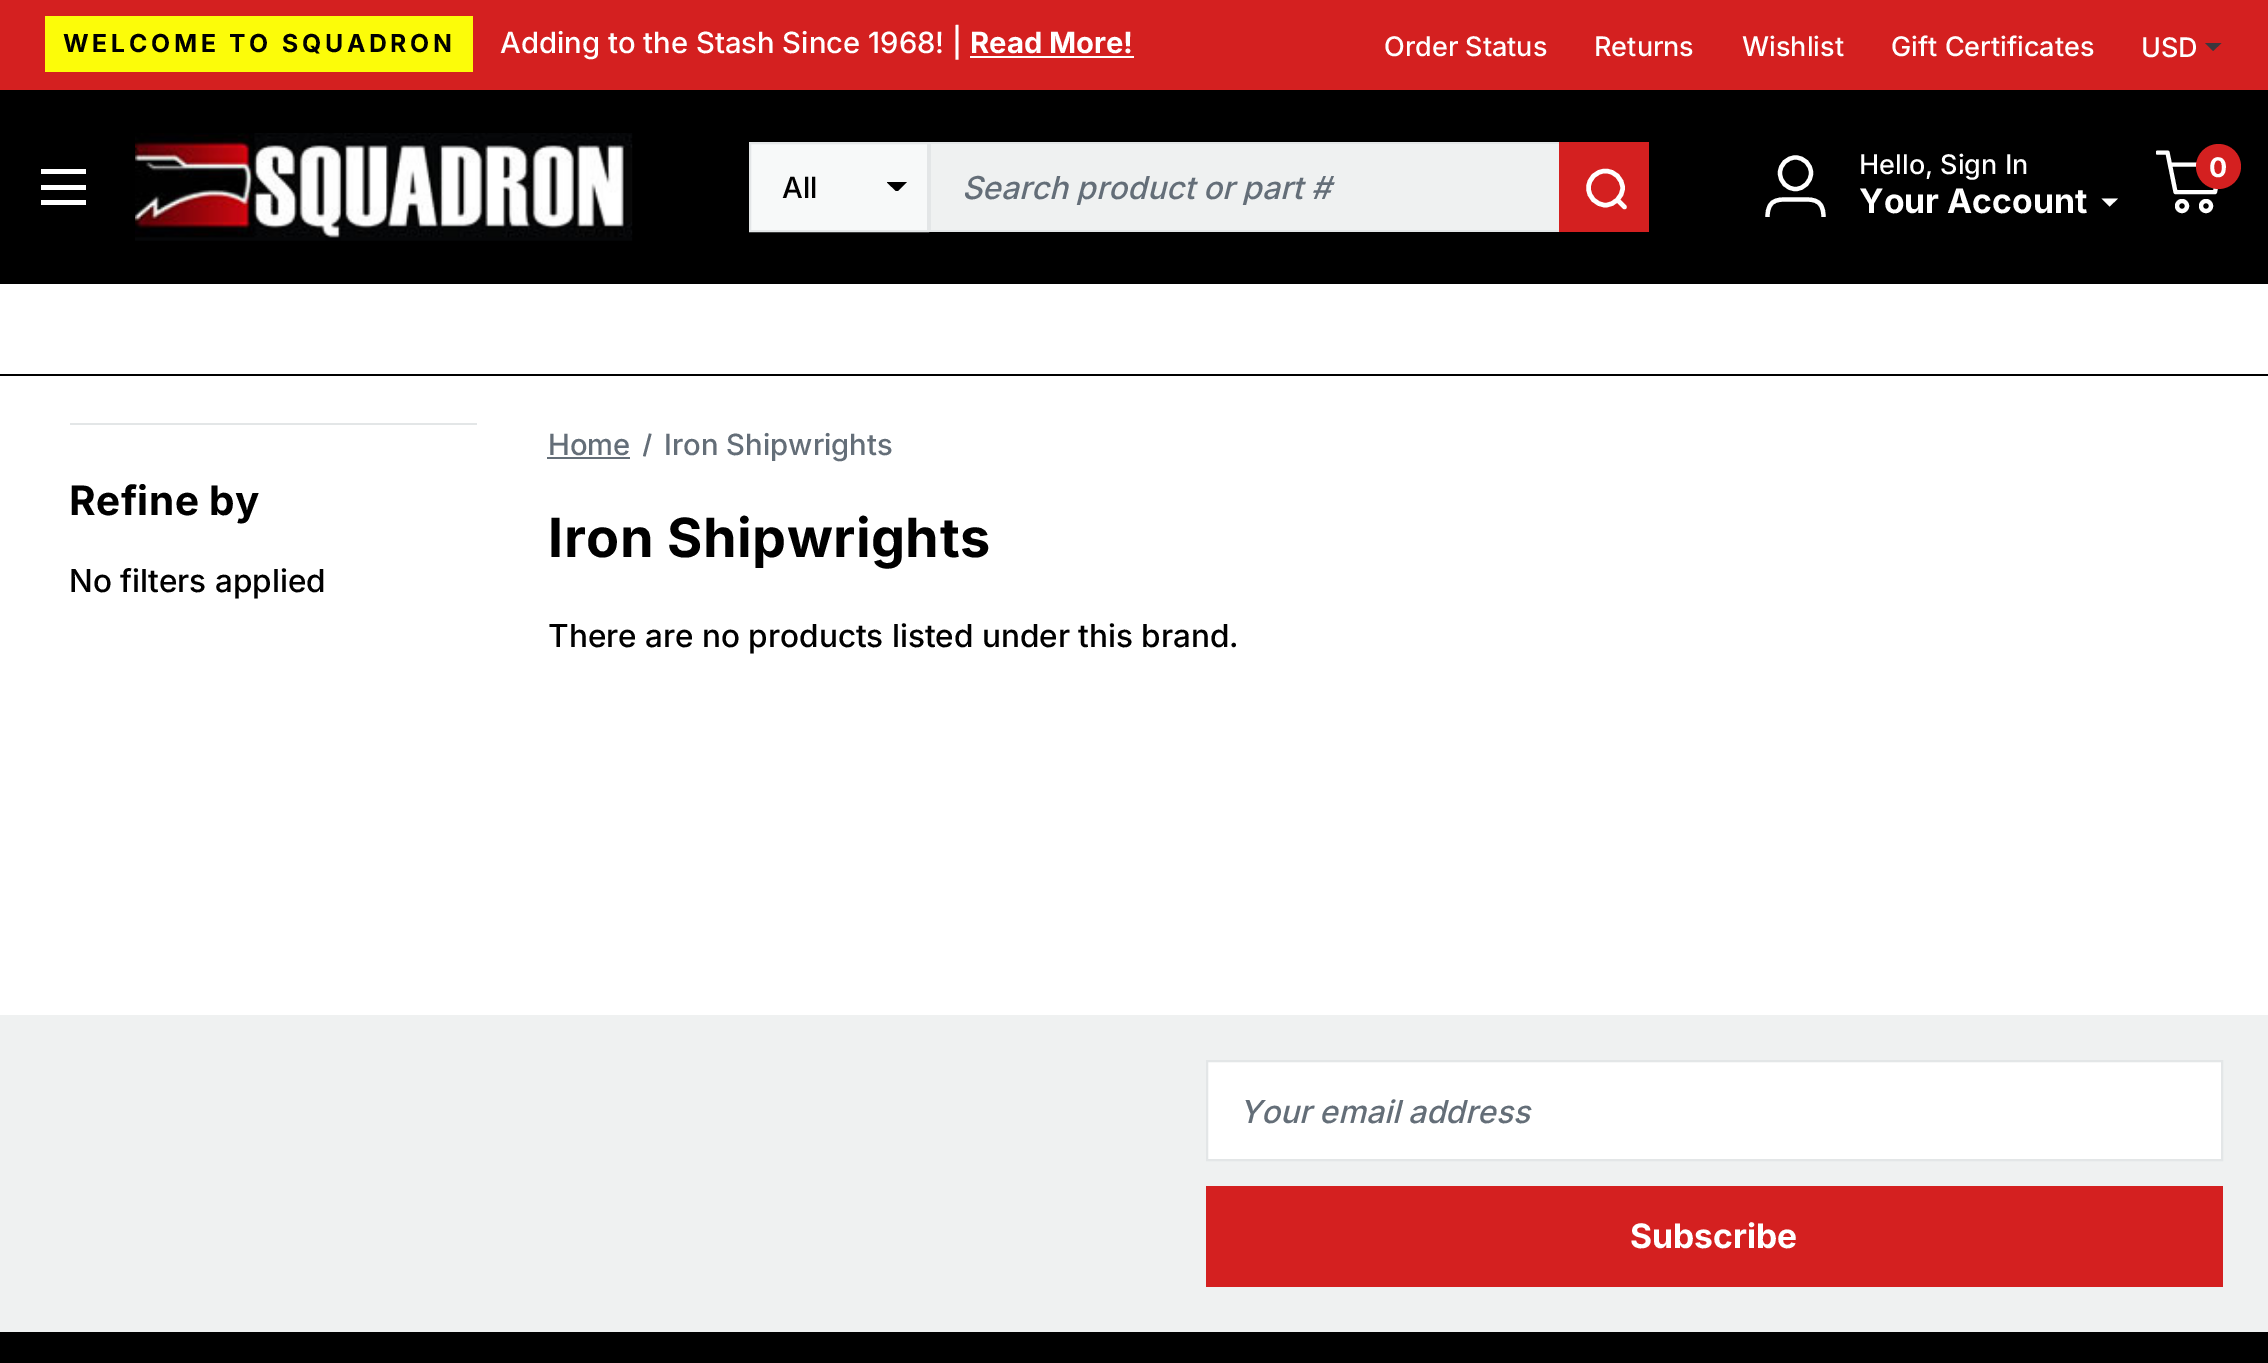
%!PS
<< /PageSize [2268 1363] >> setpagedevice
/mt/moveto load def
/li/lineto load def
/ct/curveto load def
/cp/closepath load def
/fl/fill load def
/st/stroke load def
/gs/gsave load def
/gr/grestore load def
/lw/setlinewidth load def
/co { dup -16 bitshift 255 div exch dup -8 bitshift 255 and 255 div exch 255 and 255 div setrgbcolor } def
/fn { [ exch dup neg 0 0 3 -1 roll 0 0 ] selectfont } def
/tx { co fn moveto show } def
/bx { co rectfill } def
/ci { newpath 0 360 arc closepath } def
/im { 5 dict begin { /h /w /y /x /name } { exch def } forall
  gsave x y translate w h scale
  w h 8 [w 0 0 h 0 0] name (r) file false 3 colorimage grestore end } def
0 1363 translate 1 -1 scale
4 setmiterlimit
0 0 2268 1363 16#FFFFFF bx
0 90 2268 286 16#000000 bx
0 0 2268 90 16#D42020 bx
45 16 428 56 16#FCFC09 bx
970 56 164 2 16#FFFFFF bx
16#3C373D co
2213 51 mt 2205 43 li 2221.5 43 li cp fl
41 185 45 5 16#FFFFFF bx
41 169 45 5 16#FFFFFF bx
41 200 45 5 16#FFFFFF bx
(media/1.raw) 135 133 498 108 im
751 144 176 86 16#F7F9F9 bx
gs
887 182 22 9 rectclip
16#000000 co
897 192 mt 886.5 182 li 907 182 li cp fl
gr
16#E3E6E7 co
2 lw
750 143 178 88 rectstroke
931 144 628 86 16#EFF1F1 bx
929 142 630 2 16#E3E6E7 bx
929 230 630 2 16#E3E6E7 bx
929 142 2 90 16#E3E6E7 bx
1559 142 90 90 16#D42020 bx
16#FFFFFF co
4.5 lw
1 setlinecap
1 setlinejoin
1605.5 205 mt 1614.5 205 1622.5 197 1622.5 188 ct 1622.5 178.5 1614.5 171 1605.5 171 ct 1596 171 1588.5 178.5 1588.5 188 ct 1588.5 197 1596 205 1605.5 205 ct cp 1617.5 200 mt 1624.5 207 li st
4.2 lw
0 setlinecap
0 setlinejoin
1795.5 189 mt 1787 189 1780 182 1780 173 ct 1780 164.5 1787 157.5 1795.5 157.5 ct 1804 157.5 1811 164.5 1811 173 ct 1811 181.5 1804 189 1795.5 189 ct cp 1767.5 217 mt 1767.5 197 1780 199.5 1795.5 199.5 ct 1811 199.5 1823.5 197 1823.5 217 ct st
2109.5 206.5 mt 2101.5 198.5 li 2118 198.5 li cp fl
gs
2156 149 67 67 rectclip
4.1 lw
1 setlinecap
1 setlinejoin
2170 164.5 mt 2220.5 164.5 li 2215 192 li 2175.5 192 li 2167.5 152.5 li 2157.5 152.5 li st
gr
16#D42020 co
2218.5 166.5 22.5 ci fl
16#FFFFFF co
4.1 lw
2182 206 5 ci st
2206 206 5 ci st
0 284 2268 90 16#FFFFFF bx
70 423 407 2 16#E3E6E7 bx
547 457 83 2 16#646E78 bx
649 433.5 mt 651.5 434 li 645.5 456.5 li 643 456 li cp fl
0 1332 2268 31 16#000000 bx
0 1015 2268 317 16#EFF1F1 bx
16#FFFFFF co
1207 1061 mt 2222 1061 li 2222 1160 li 1207 1160 li cp gs fl gr
16#E3E6E7 co
2 lw
st
1206 1186 1017 101 16#D42020 bx
/Inter-Bold 24.75 fn
16#000000 co
63 52 mt 3.75 0 (WELCOME TO SQUADRON) ashow
(Adding to the Stash Since 1968! |) 500 53 /Inter-Medium 29.25 16#FFFFFF tx
(Read More!) 970 53 /Inter-Bold 29.25 16#FFFFFF tx
(Order Status) 1384 56 /Inter-Medium 27 16#FFFFFF tx
(Returns) 1594 56 /Inter-Medium 27 16#FFFFFF tx
(Wishlist) 1742 56 /Inter-Medium 27 16#FFFFFF tx
(Gift Certificates) 1891 56 /Inter-Medium 27 16#FFFFFF tx
(USD) 2141 57 /Inter-Medium 27 16#FFFFFF tx
(All) 782 198 /Inter-Medium 29.25 16#000000 tx
gs
963 167 565 38 rectclip
(Search product or part #) 962 199 /Inter-MediumItalic 31.5 16#646E78 tx
gr
(Hello, Sign In) 1859 174 /Inter-Medium 27 16#FFFFFF tx
(Your Account) 1859 213 /Inter-Bold 33.75 16#FFFFFF tx
(0) 2209 177 /Inter-Bold 27 16#FFFFFF tx
/Inter-Bold 40.5 fn
16#000000 co
69 515 mt .5 0 (Refine by) ashow
(No filters applied) 69 592 /Inter-Medium 31.5 16#000000 tx
(Home) 548 455 /Inter-Medium 29.25 16#646E78 tx
(Iron Shipwrights) 664 455 /Inter-Medium 29.25 16#646E78 tx
/Inter-Bold 54 fn
16#000000 co
548 557 mt .5 0 (Iron Shipwrights) ashow
(There are no products listed under this brand.) 548 647 /Inter-Medium 31.5 16#000000 tx
(Your email address) 1239 1123 /Inter-MediumItalic 31.5 16#646E78 tx
(Subscribe) 1630 1248 /Inter-Bold 33.75 16#FFFFFF tx
showpage
